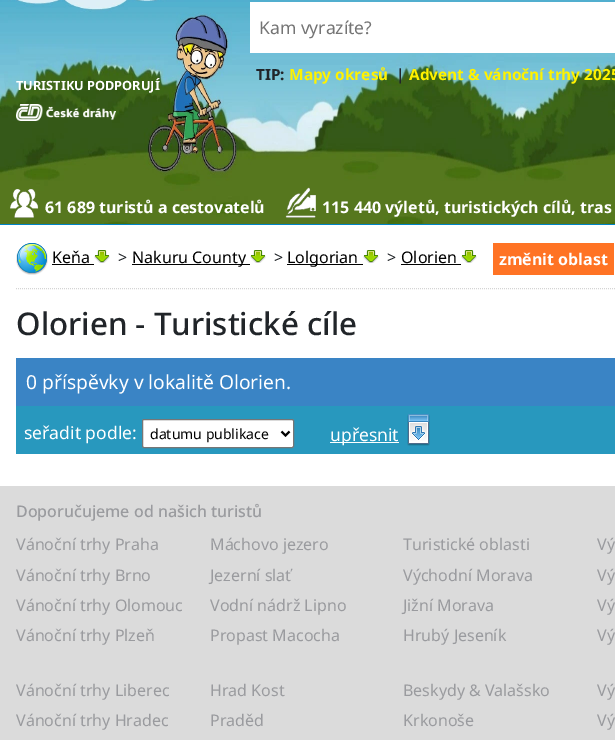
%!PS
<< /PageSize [615 740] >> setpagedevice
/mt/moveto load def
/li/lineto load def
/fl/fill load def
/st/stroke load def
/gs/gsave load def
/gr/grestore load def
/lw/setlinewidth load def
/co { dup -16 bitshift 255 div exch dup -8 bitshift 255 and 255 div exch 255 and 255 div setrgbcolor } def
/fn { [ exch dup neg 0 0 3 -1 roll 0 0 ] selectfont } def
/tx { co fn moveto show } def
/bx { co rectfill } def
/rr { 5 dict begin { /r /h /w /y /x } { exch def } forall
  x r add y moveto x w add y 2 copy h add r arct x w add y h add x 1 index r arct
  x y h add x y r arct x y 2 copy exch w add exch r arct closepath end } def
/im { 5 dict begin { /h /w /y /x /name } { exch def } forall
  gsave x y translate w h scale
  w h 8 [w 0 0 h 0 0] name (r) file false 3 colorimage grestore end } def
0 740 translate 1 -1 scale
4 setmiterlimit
0 0 615 740 16#FFFFFF bx
(media/1.raw) 0 0 615 224 im
250 2 365 51 16#FFFFFF bx
(media/2.raw) 16 104 100 17 im
0 224 615 1 16#0083C6 bx
(media/3.raw) 10 189 29 29 im
(media/4.raw) 285 187 31 31 im
16#D4D4D4 co
[1 1] 0 setdash
16 288.5 mt 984 288.5 li st
(media/5.raw) 16 243 32 32 im
52 264 42 1 16#000000 bx
(media/6.raw) 94 250 16 13 im
132 264 118 1 16#000000 bx
(media/6.raw) 250 250 16 13 im
287 264 76 1 16#000000 bx
(media/6.raw) 363 250 16 13 im
401 264 60 1 16#000000 bx
(media/6.raw) 461 250 16 13 im
493 243 121 32 16#FF7324 bx
16 358 599 48 16#3A84C5 bx
16 406 599 48 16#2898BE bx
16#FFFFFF co
142.5 419.5 151 28 1.5 rr gs fl gr
16#767676 co
[] 0 setdash
st
16#000000 co
2 lw
281.5 431.5 mt 285.5 435.5 li 289.5 431.5 li st
(media/7.raw) 407 414 23 32 im
330 442 69 1 16#FFFFFF bx
0 486 615 254 16#DBDBDB bx
(Kam vyrazíte?) 259 34 /NotoSans-Regular 17.5 16#757575 tx
(TIP:) 256 80 /NotoSans-Bold 15.4 16#212529 tx
(Mapy okresů) 289 80 /NotoSans-Bold 15.4 16#FFF200 tx
(|) 396 80 /NotoSans-Bold 15.4 16#212529 tx
(Advent & vánoční trhy 2025) 409 80 /NotoSans-Bold 15.4 16#FFF200 tx
(TURISTIKU PODPORUJÍ) 16 90 /NotoSans-Bold 12.75 16#FFFFFF tx
(61 689 turistů a cestovatelů) 45 213 /NotoSans-Bold 16 16#FFFFFF tx
(115 440 výletů, turistických cílů, tras) 322 213 /NotoSans-Bold 16 16#FFFFFF tx
(Keňa) 52 263 /NotoSans-Regular 16 16#000000 tx
(>) 118 263 /NotoSans-Regular 16 16#212529 tx
(Nakuru County) 132 263 /NotoSans-Regular 16 16#000000 tx
(>) 274 263 /NotoSans-Regular 16 16#212529 tx
(Lolgorian) 287 263 /NotoSans-Regular 16 16#000000 tx
(>) 387 263 /NotoSans-Regular 16 16#212529 tx
(Olorien) 401 263 /NotoSans-Regular 16 16#000000 tx
(změnit oblast) 499 265 /NotoSans-Bold 16 16#FFFFFF tx
(Olorien - Turistické cíle) 16 335 /NotoSans-Medium 31.25 16#212529 tx
(0 příspěvky v lokalitě Olorien.) 26 389 /NotoSans-Regular 19.25 16#FFFFFF tx
(seřadit podle:) 24 439 /NotoSans-Regular 17.5 16#FFFFFF tx
(datumu publikace) 150 439 /NotoSans-Regular 14 16#000000 tx
(upřesnit) 330 441 /NotoSans-Regular 17.5 16#FFFFFF tx
(Doporučujeme od našich turistů) 16 517 /NotoSans-Medium 16 16#9A9B9F tx
(Vánoční trhy Praha) 16 550 /NotoSans-Regular 16 16#9A9B9F tx
(Máchovo jezero) 210 550 /NotoSans-Regular 16 16#9A9B9F tx
(Turistické oblasti) 403 550 /NotoSans-Regular 16 16#9A9B9F tx
(Vý) 597 550 /NotoSans-Regular 16 16#9A9B9F tx
(Vánoční trhy Brno) 16 581 /NotoSans-Regular 16 16#9A9B9F tx
(Jezerní slať) 210 581 /NotoSans-Regular 16 16#9A9B9F tx
(Východní Morava) 403 581 /NotoSans-Regular 16 16#9A9B9F tx
(Vý) 597 581 /NotoSans-Regular 16 16#9A9B9F tx
(Vánoční trhy Olomouc) 16 611 /NotoSans-Regular 16 16#9A9B9F tx
(Vodní nádrž Lipno) 210 611 /NotoSans-Regular 16 16#9A9B9F tx
(Jižní Morava) 403 611 /NotoSans-Regular 16 16#9A9B9F tx
(Vý) 597 611 /NotoSans-Regular 16 16#9A9B9F tx
(Vánoční trhy Plzeň) 16 641 /NotoSans-Regular 16 16#9A9B9F tx
(Propast Macocha) 210 641 /NotoSans-Regular 16 16#9A9B9F tx
(Hrubý Jeseník) 403 641 /NotoSans-Regular 16 16#9A9B9F tx
(Vý) 597 641 /NotoSans-Regular 16 16#9A9B9F tx
(Vánoční trhy Liberec) 16 696 /NotoSans-Regular 16 16#9A9B9F tx
(Hrad Kost) 210 696 /NotoSans-Regular 16 16#9A9B9F tx
(Beskydy & Valašsko) 403 696 /NotoSans-Regular 16 16#9A9B9F tx
(Vý) 597 696 /NotoSans-Regular 16 16#9A9B9F tx
(Vánoční trhy Hradec) 16 726 /NotoSans-Regular 16 16#9A9B9F tx
(Praděd) 210 726 /NotoSans-Regular 16 16#9A9B9F tx
(Krkonoše) 403 726 /NotoSans-Regular 16 16#9A9B9F tx
(Vý) 597 726 /NotoSans-Regular 16 16#9A9B9F tx
showpage
